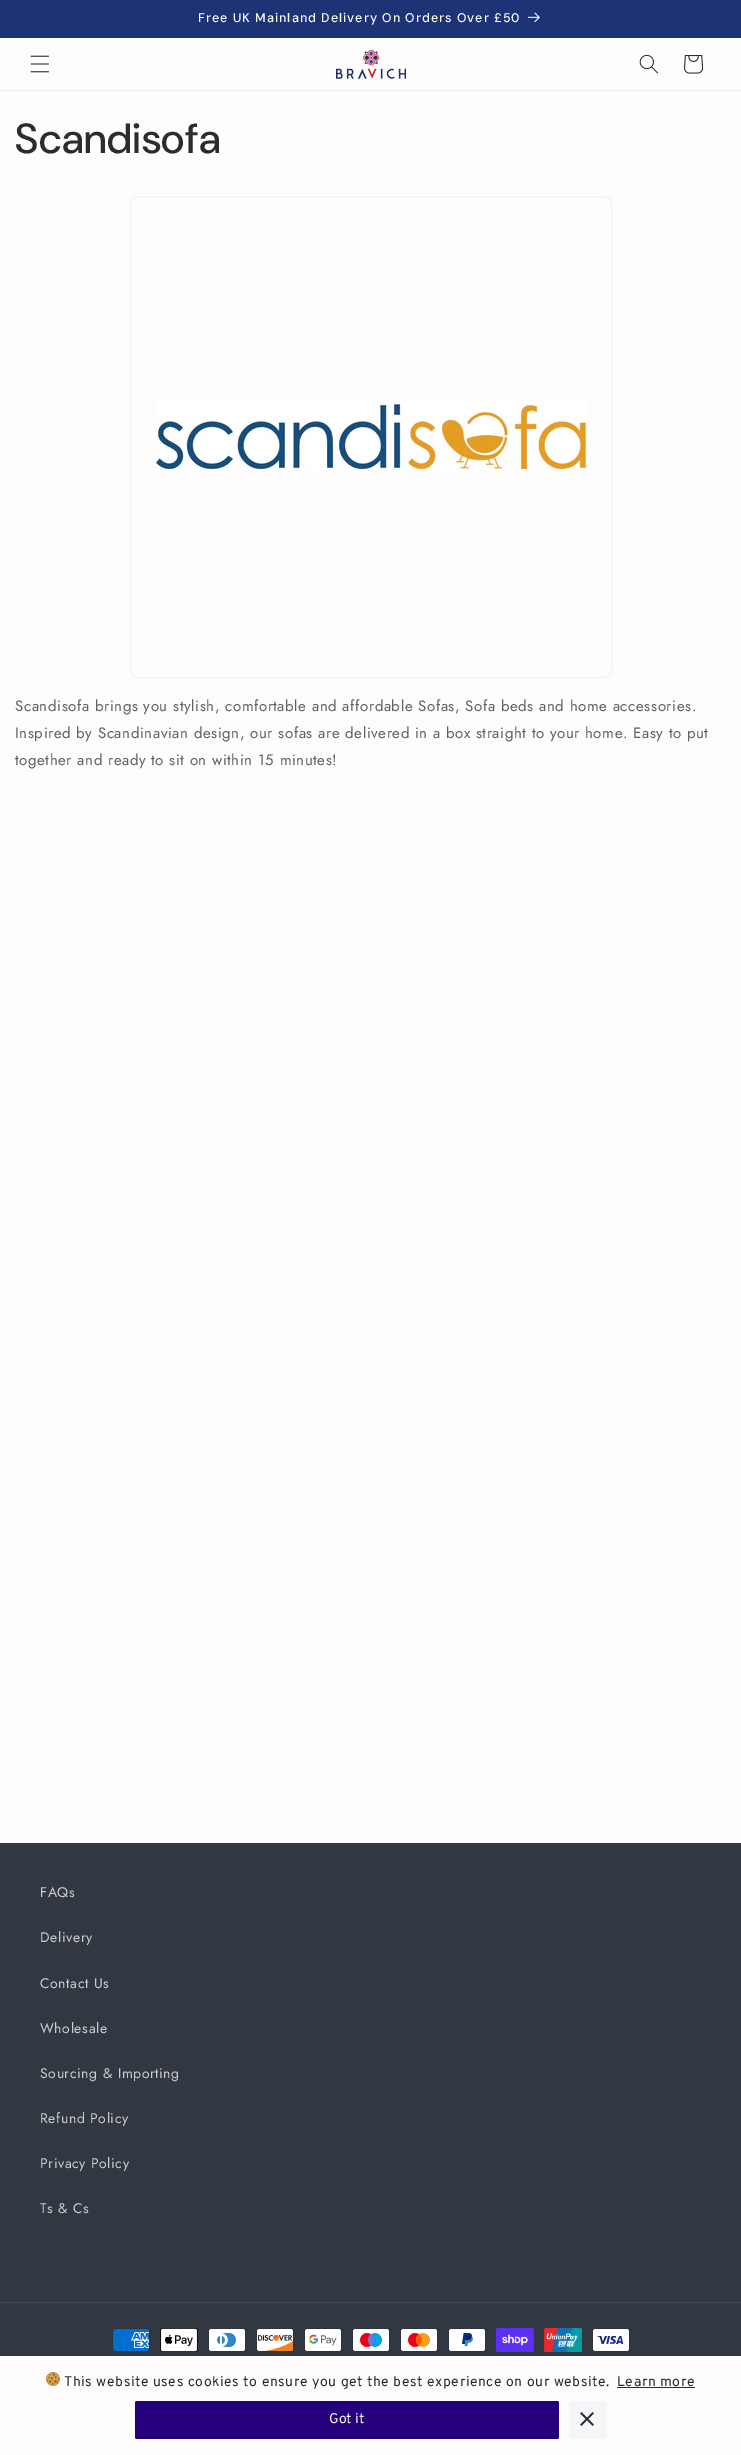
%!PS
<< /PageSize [741 2455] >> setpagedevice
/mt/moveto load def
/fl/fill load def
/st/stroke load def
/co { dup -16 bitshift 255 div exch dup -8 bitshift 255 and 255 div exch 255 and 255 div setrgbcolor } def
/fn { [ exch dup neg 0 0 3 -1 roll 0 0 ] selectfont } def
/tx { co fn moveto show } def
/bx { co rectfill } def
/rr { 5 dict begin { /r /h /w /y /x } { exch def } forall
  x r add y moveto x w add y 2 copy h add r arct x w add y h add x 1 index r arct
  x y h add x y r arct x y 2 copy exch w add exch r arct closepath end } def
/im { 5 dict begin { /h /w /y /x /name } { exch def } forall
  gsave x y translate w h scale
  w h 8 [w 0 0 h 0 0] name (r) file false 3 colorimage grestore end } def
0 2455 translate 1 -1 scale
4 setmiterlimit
0 0 741 2455 16#FDFDFD bx
0 0 741 38 16#1E3375 bx
(media/1.raw) 528 12 12 11 im
0 90 741 1 16#ECECEC bx
(media/2.raw) 30 55 20 18 im
(media/3.raw) 336 50 70 29 im
(media/4.raw) 639 54 19 20 im
(media/5.raw) 684 55 20 19 im
16#F2F3F3 co
130.5 196.5 481 481 7.5 rr st
(media/6.raw) 155 401 433 69 im
0 1843 741 513 16#323841 bx
0 2302 741 1 16#424850 bx
(media/7.raw) 112 2328 38 24 im
(media/8.raw) 160 2328 38 24 im
(media/9.raw) 208 2328 38 24 im
(media/10.raw) 256 2328 38 24 im
(media/11.raw) 304 2328 38 24 im
(media/12.raw) 352 2328 38 24 im
(media/13.raw) 400 2328 38 24 im
(media/14.raw) 448 2328 38 24 im
(media/15.raw) 496 2328 38 24 im
(media/16.raw) 544 2328 38 24 im
(media/17.raw) 592 2328 38 24 im
(media/18.raw) 46 2372 14 14 im
617 2387 78 1 16#2D2D2D bx
16#24007C co
135 2401 424 38 2 rr fl
16#F4F6F8 co
569 2401 38 38 2 rr fl
(media/19.raw) 580 2412 14 14 im
/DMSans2-Medium 12.6 fn
16#FFFFFF co
198 22 mt 1 0 (Free UK Mainland Delivery On Orders Over £50) ashow
/DMSans-Medium 42 fn
16#2B2C2D co
15 153 mt .6 0 (Scandisofa) ashow
/Jost-Regular 15 fn
16#606061 co
15 711 mt .6 0 (Scandisofa brings you stylish, comfortable and affordable Sofas, Sofa beds and home accessories.) ashow
15 738 mt .6 0 (Inspired by Scandinavian design, our sofas are delivered in a box straight to your home. Easy to put) ashow
15 765 mt .6 0 (together and ready to sit on within 15 minutes!) ashow
/Jost-Regular 14 fn
16#CCCDD0 co
40 1897 mt .6 0 (FAQs) ashow
40 1942 mt .6 0 (Delivery) ashow
40 1988 mt .6 0 (Contact Us) ashow
40 2033 mt .6 0 (Wholesale) ashow
40 2078 mt .6 0 (Sourcing & Importing) ashow
40 2123 mt .6 0 (Refund Policy) ashow
40 2168 mt .6 0 (Privacy Policy) ashow
40 2213 mt .6 0 (Ts & Cs) ashow
/Overpass-Regular 14 fn
16#2B2C2D co
64 2386 mt .6 0 (This website uses cookies to ensure you get the best experience on our website.) ashow
617 2386 mt .6 0 (Learn more) ashow
(Got it) 329 2423 /Overpass-Regular 14 16#FFFFFF tx
showpage
